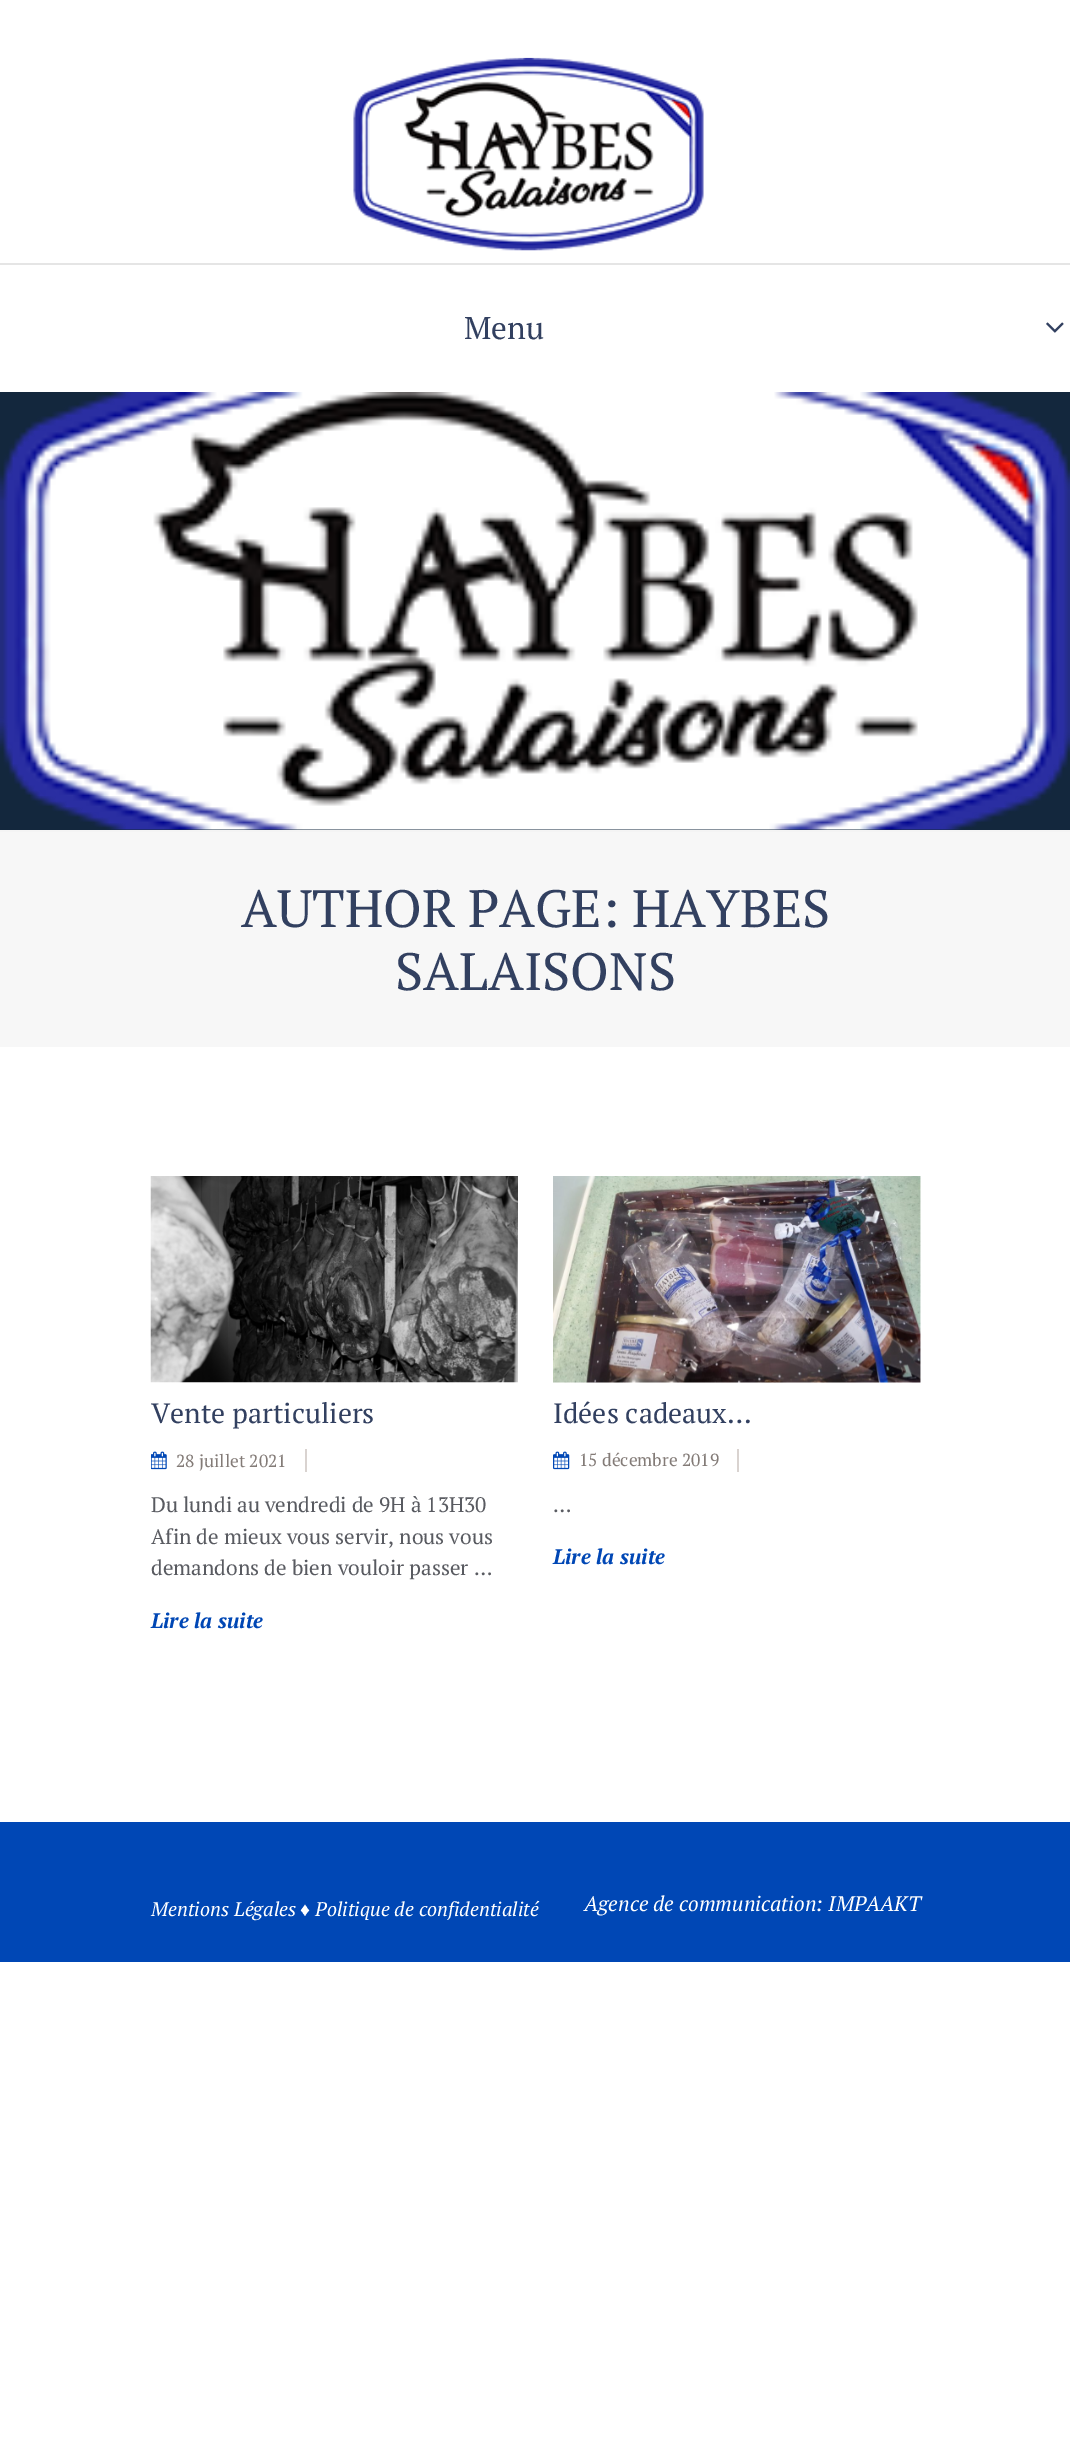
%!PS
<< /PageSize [1070 2455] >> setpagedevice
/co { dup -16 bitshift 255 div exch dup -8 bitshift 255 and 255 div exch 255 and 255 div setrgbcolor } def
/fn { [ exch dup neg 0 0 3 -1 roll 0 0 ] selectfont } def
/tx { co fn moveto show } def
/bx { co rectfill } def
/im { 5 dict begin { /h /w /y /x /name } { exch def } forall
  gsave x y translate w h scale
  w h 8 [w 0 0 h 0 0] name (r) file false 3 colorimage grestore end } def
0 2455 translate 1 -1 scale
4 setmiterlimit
0 0 1070 2455 16#FFFFFF bx
(media/1.raw) 353 57 351 194 im
0 263 1070 2 16#E5E5E5 bx
(media/2.raw) 1046 322 18 11 im
0 392 1070 438 16#13273D bx
(media/3.raw) 0 392 1070 438 im
0 832 1070 215 16#F7F7F7 bx
0 830 1070 2 16#F4F4F4 bx
(media/4.raw) 150 1176 368 207 im
(media/5.raw) 151 1451 16 19 im
305 1449 2 23 16#D9D3D0 bx
(media/6.raw) 553 1176 368 207 im
(media/7.raw) 553 1451 17 19 im
737 1449 2 23 16#D9D3D0 bx
0 1822 1070 140 16#0047B5 bx
(Menu) 464 339 /PTSerif-Regular 31.5 16#324060 tx
(AUTHOR PAGE: HAYBES) 241 927 /PTSerif-Regular 52.5 16#324060 tx
(SALAISONS) 395 990 /PTSerif-Regular 52.5 16#324060 tx
(Vente particuliers) 151 1423 /PTSerif-Regular 28 16#324060 tx
(28 juillet 2021) 176 1467 /PTSerif-Regular 17.5 16#837B77 tx
(Du lundi au vendredi de 9H à 13H30) 151 1512 /PTSerif-Regular 21 16#595B61 tx
(Afin de mieux vous servir, nous vous) 151 1544 /PTSerif-Regular 21 16#595B61 tx
(demandons de bien vouloir passer …) 151 1575 /PTSerif-Regular 21 16#595B61 tx
(Lire la suite) 151 1628 /PTSerif-BoldItalic 21 16#0047B5 tx
(Idées cadeaux…) 553 1423 /PTSerif-Regular 28 16#324060 tx
(15 décembre 2019) 579 1466 /PTSerif-Regular 17.5 16#837B77 tx
(…) 553 1512 /PTSerif-Regular 21 16#595B61 tx
(Lire la suite) 553 1564 /PTSerif-BoldItalic 21 16#0047B5 tx
(Mentions Légales) 151 1916 /PTSerif-Italic 19.75 16#FFFFFF tx
(♦) 300 1916 /LiberationSerif-Italic 19.75 16#FFFFFF tx
(Politique de confidentialité) 315 1916 /PTSerif-Italic 19.75 16#FFFFFF tx
(Agence de communication: IMPAAKT) 584 1911 /PTSerif-Italic 21 16#FFFFFF tx
showpage
